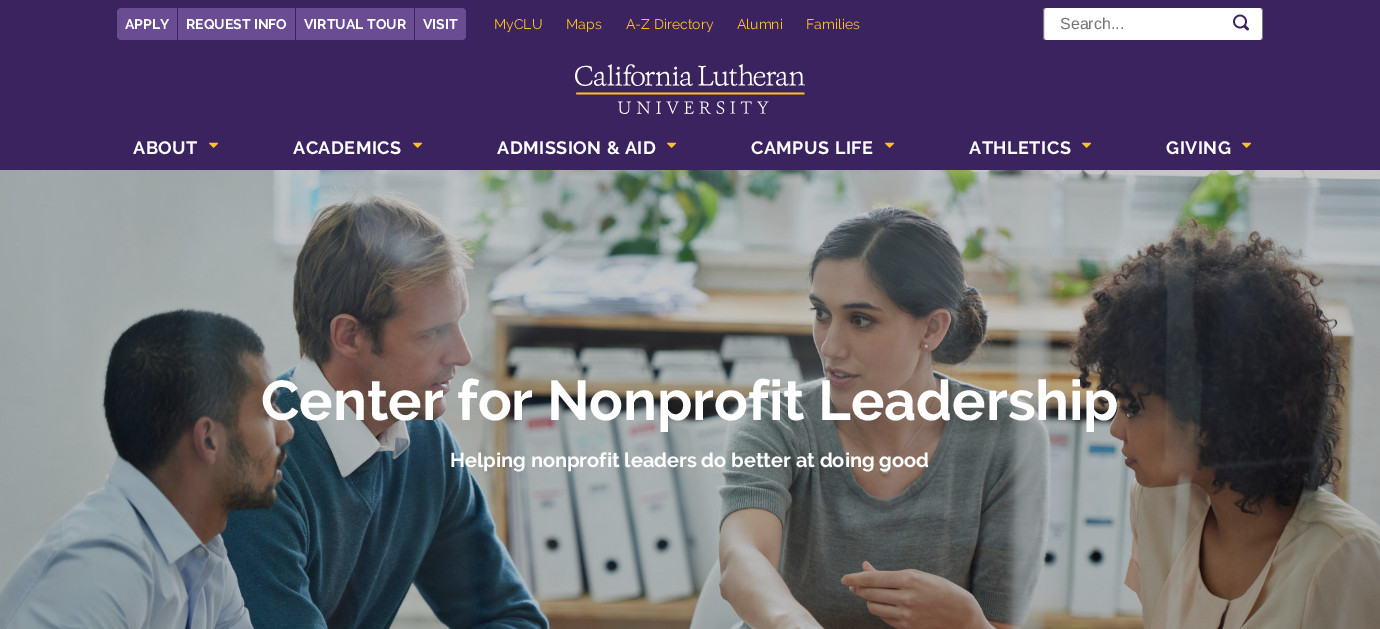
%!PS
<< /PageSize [1380 629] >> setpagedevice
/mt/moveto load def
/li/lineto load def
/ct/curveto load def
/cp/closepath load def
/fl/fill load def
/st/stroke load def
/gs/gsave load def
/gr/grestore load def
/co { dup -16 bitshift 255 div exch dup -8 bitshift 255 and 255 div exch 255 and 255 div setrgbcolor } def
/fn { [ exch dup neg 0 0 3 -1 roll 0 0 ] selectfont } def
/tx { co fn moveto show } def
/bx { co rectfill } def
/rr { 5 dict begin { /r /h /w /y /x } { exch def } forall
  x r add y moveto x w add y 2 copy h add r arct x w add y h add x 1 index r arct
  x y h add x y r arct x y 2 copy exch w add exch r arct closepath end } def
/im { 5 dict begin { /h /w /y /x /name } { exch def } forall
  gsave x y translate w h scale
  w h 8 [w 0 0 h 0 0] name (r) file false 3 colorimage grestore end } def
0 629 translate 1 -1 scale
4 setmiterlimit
0 0 1380 629 16#3B2360 bx
16#6A4C92 co
121 8 mt 177 8 li 177 40 li 121 40 li 119 40 117 38 117 36 ct 117 12 li 117 10 119 8 121 8 ct cp fl
178 8 117 32 16#6A4C92 bx
296 8 118 32 16#6A4C92 bx
415 8 mt 462 8 li 464 8 466 10 466 12 ct 466 36 li 466 38 464 40 462 40 ct 415 40 li cp fl
gs
1043 8 220 32 rectclip
16#FFFFFF co
1043.5 6.5 219 35 4.5 rr gs fl gr
16#7C7B7C co
st
gr
(media/1.raw) 1233 14 16 17 im
(media/2.raw) 575 64 230 50 im
(media/3.raw) 209 142 10 6 im
(media/3.raw) 413 142 10 6 im
(media/3.raw) 667 142 10 6 im
(media/3.raw) 885 142 10 6 im
(media/3.raw) 1082 142 10 6 im
(media/3.raw) 1242 142 10 6 im
(media/4.raw) 0 170 1380 459 im
(APPLY) 125 29 /Raleway-Bold 14 16#FFFFFF tx
(REQUEST INFO) 186 29 /Raleway-Bold 14 16#FFFFFF tx
(VIRTUAL TOUR) 304 29 /Raleway-Bold 14 16#FFFFFF tx
(VISIT) 423 29 /Raleway-Bold 14 16#FFFFFF tx
(MyCLU) 494 29 /Raleway-Regular 14 16#FFC222 tx
(Maps) 566 29 /Raleway-Regular 14 16#FFC222 tx
(A-Z Directory) 626 29 /Raleway-Regular 14 16#FFC222 tx
(Alumni) 737 29 /Raleway-Regular 14 16#FFC222 tx
(Families) 806 29 /Raleway-Regular 14 16#FFC222 tx
(Search...) 1060 29 /LiberationSans-Regular 16 16#757575 tx
/Raleway-Bold 18 fn
16#FFFFFF co
133 154 mt .5 0 (ABOUT) ashow
293 154 mt .5 0 (ACADEMICS) ashow
497 154 mt .5 0 (ADMISSION & AID) ashow
751 154 mt .5 0 (CAMPUS LIFE) ashow
969 154 mt .5 0 (ATHLETICS) ashow
1166 154 mt .5 0 (GIVING) ashow
(Center for Nonprofit Leadership) 261 420 /Raleway-Bold 56 16#FFFFFF tx
(Helping nonprofit leaders do better at doing good) 450 467 /Raleway-Bold 20 16#FFFFFF tx
showpage
